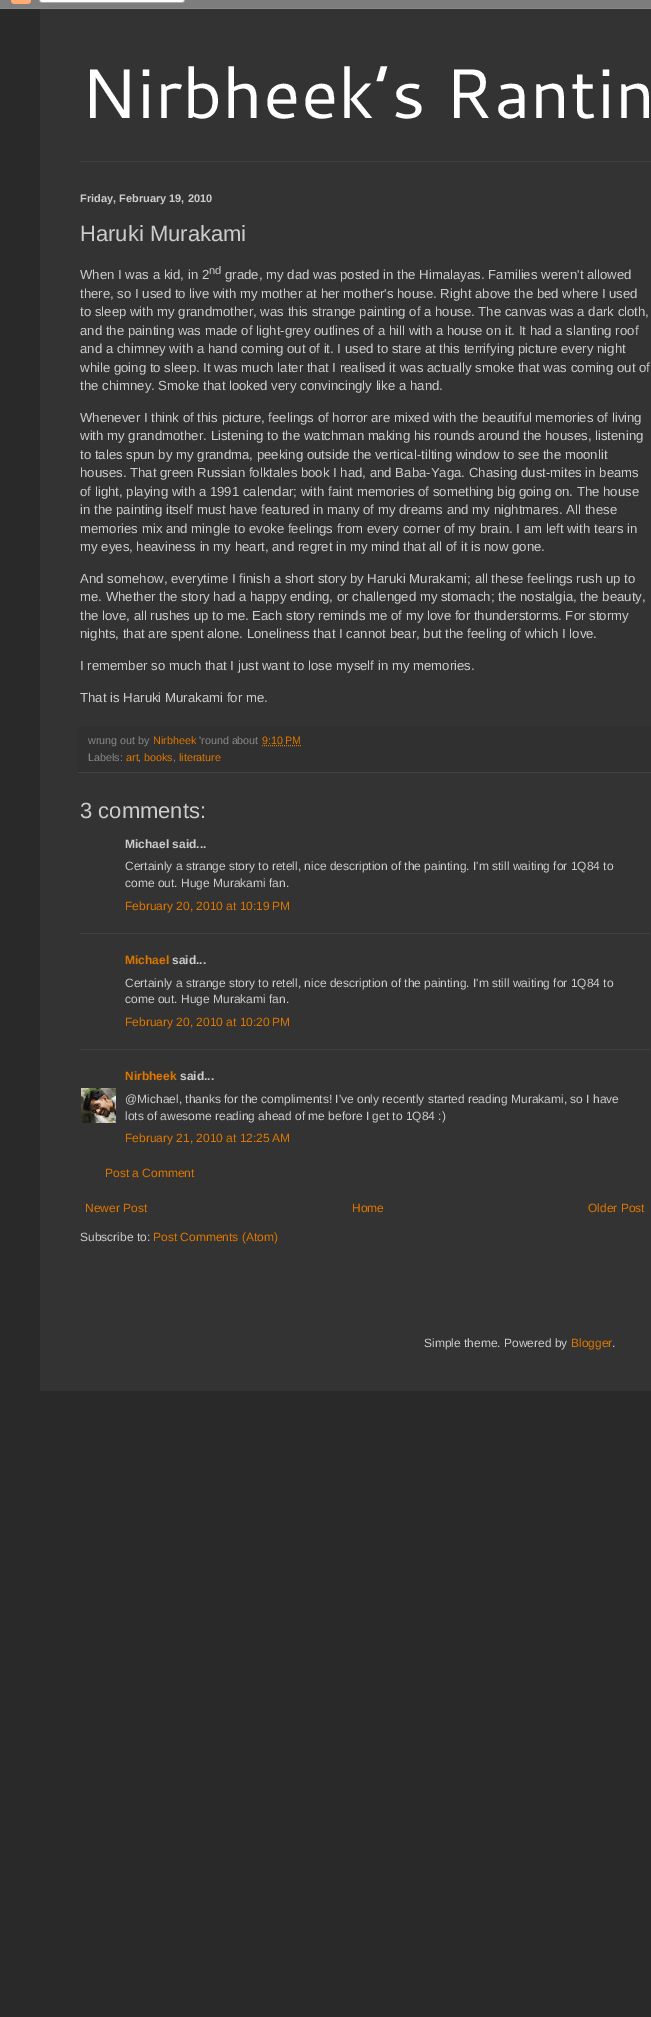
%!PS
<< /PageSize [651 2017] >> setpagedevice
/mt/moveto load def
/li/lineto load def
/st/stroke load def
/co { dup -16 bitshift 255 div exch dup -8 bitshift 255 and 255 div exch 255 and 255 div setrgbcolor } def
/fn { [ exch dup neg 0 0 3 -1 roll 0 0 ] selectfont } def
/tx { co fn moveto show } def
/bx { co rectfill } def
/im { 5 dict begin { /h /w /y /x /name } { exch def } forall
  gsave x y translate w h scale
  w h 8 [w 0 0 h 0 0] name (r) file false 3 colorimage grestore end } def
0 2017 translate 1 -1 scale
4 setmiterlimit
0 0 651 2017 16#292929 bx
(media/1.raw) 0 0 651 9 im
40 9 611 1382 16#333333 bx
80 161 571 1 16#404040 bx
78 727 573 45 16#303030 bx
78 772 573 1 16#444444 bx
16#DD7700 co
[1 1] 0 setdash
262 745.5 mt 301 745.5 li st
80 933 570 1 16#404040 bx
80 1049 570 1 16#404040 bx
(media/2.raw) 81 1088 35 35 im
(Nirbheek’s Rantin) 80 118 /Cantarell-Regular 70 16#FFFFFF tx
(Friday, February 19, 2010) 80 202 /LiberationSans-Bold 11 16#CCCCCC tx
(Haruki Murakami) 80 241 /LiberationSans-Regular 22 16#CCCCCC tx
(When I was a kid, in 2) 80 279 /LiberationSans-Regular 13.2 16#CCCCCC tx
(nd) 209 274 /LiberationSans-Regular 11 16#CCCCCC tx
(grade, my dad was posted in the Himalayas. Families weren't allowed) 225 279 /LiberationSans-Regular 13.2 16#CCCCCC tx
(there, so I used to live with my mother at her mother's house. Right above the bed where I used) 80 298 /LiberationSans-Regular 13.2 16#CCCCCC tx
(to sleep with my grandmother, was this strange painting of a house. The canvas was a dark cloth,) 80 316 /LiberationSans-Regular 13.2 16#CCCCCC tx
(and the painting was made of light-grey outlines of a hill with a house on it. It had a slanting roof) 80 335 /LiberationSans-Regular 13.2 16#CCCCCC tx
(and a chimney with a hand coming out of it. I used to stare at this terrifying picture every night) 80 353 /LiberationSans-Regular 13.2 16#CCCCCC tx
(while going to sleep. It was much later that I realised it was actually smoke that was coming out of) 80 372 /LiberationSans-Regular 13.2 16#CCCCCC tx
(the chimney. Smoke that looked very convincingly like a hand.) 80 390 /LiberationSans-Regular 13.2 16#CCCCCC tx
(Whenever I think of this picture, feelings of horror are mixed with the beautiful memories of living) 80 422 /LiberationSans-Regular 13.2 16#CCCCCC tx
(with my grandmother. Listening to the watchman making his rounds around the houses, listening) 80 440 /LiberationSans-Regular 13.2 16#CCCCCC tx
(to tales spun by my grandma, peeking outside the vertical-tilting window to see the moonlit) 80 459 /LiberationSans-Regular 13.2 16#CCCCCC tx
(houses. That green Russian folktales book I had, and Baba-Yaga. Chasing dust-mites in beams) 80 477 /LiberationSans-Regular 13.2 16#CCCCCC tx
(of light, playing with a 1991 calendar; with faint memories of something big going on. The house) 80 496 /LiberationSans-Regular 13.2 16#CCCCCC tx
(in the painting itself must have featured in many of my dreams and my nightmares. All these) 80 514 /LiberationSans-Regular 13.2 16#CCCCCC tx
(memories mix and mingle to evoke feelings from every corner of my brain. I am left with tears in) 80 533 /LiberationSans-Regular 13.2 16#CCCCCC tx
(my eyes, heaviness in my heart, and regret in my mind that all of it is now gone.) 80 551 /LiberationSans-Regular 13.2 16#CCCCCC tx
(And somehow, everytime I finish a short story by Haruki Murakami; all these feelings rush up to) 80 583 /LiberationSans-Regular 13.2 16#CCCCCC tx
(me. Whether the story had a happy ending, or challenged my stomach; the nostalgia, the beauty,) 80 601 /LiberationSans-Regular 13.2 16#CCCCCC tx
(the love, all rushes up to me. Each story reminds me of my love for thunderstorms. For stormy) 80 620 /LiberationSans-Regular 13.2 16#CCCCCC tx
(nights, that are spent alone. Loneliness that I cannot bear, but the feeling of which I love.) 80 638 /LiberationSans-Regular 13.2 16#CCCCCC tx
(I remember so much that I just want to lose myself in my memories.) 80 670 /LiberationSans-Regular 13.2 16#CCCCCC tx
(That is Haruki Murakami for me.) 80 702 /LiberationSans-Regular 13.2 16#CCCCCC tx
(wrung out by) 88 744 /LiberationSans-Regular 10.75 16#888888 tx
(Nirbheek) 153 744 /LiberationSans-Regular 10.75 16#DD7700 tx
('round about) 199 744 /LiberationSans-Regular 10.75 16#888888 tx
(9:10 PM) 262 744 /LiberationSans-Regular 10.75 16#DD7700 tx
(Labels:) 88 761 /LiberationSans-Regular 10.75 16#888888 tx
(art) 126 761 /LiberationSans-Regular 10.75 16#DD7700 tx
(,) 138 761 /LiberationSans-Regular 10.75 16#888888 tx
(books) 144 761 /LiberationSans-Regular 10.75 16#DD7700 tx
(,) 173 761 /LiberationSans-Regular 10.75 16#888888 tx
(literature) 179 761 /LiberationSans-Regular 10.75 16#DD7700 tx
(3 comments:) 80 818 /LiberationSans-Regular 22 16#CCCCCC tx
(Michael said...) 125 848 /LiberationSans-Bold 12 16#CCCCCC tx
(Certainly a strange story to retell, nice description of the painting. I'm still waiting for 1Q84 to) 125 870 /LiberationSans-Regular 12 16#CCCCCC tx
(come out. Huge Murakami fan.) 125 887 /LiberationSans-Regular 12 16#CCCCCC tx
(February 20, 2010 at 10:19 PM) 125 910 /LiberationSans-Regular 12 16#DD7700 tx
(Michael) 125 964 /LiberationSans-Bold 12 16#DD7700 tx
(said...) 172 964 /LiberationSans-Bold 12 16#CCCCCC tx
(Certainly a strange story to retell, nice description of the painting. I'm still waiting for 1Q84 to) 125 987 /LiberationSans-Regular 12 16#CCCCCC tx
(come out. Huge Murakami fan.) 125 1003 /LiberationSans-Regular 12 16#CCCCCC tx
(February 20, 2010 at 10:20 PM) 125 1026 /LiberationSans-Regular 12 16#DD7700 tx
(Nirbheek) 125 1080 /LiberationSans-Bold 12 16#DD7700 tx
(said...) 180 1080 /LiberationSans-Bold 12 16#CCCCCC tx
(@Michael, thanks for the compliments! I've only recently started reading Murakami, so I have) 125 1103 /LiberationSans-Regular 12 16#CCCCCC tx
(lots of awesome reading ahead of me before I get to 1Q84 :\)) 125 1120 /LiberationSans-Regular 12 16#CCCCCC tx
(February 21, 2010 at 12:25 AM) 125 1142 /LiberationSans-Regular 12 16#DD7700 tx
(Post a Comment) 105 1177 /LiberationSans-Regular 12 16#DD7700 tx
(Newer Post) 85 1212 /LiberationSans-Regular 12 16#DD7700 tx
(Home) 352 1212 /LiberationSans-Regular 12 16#DD7700 tx
(Older Post) 588 1212 /LiberationSans-Regular 12 16#DD7700 tx
(Subscribe to:) 80 1241 /LiberationSans-Regular 12 16#CCCCCC tx
(Post Comments \(Atom\)) 153 1241 /LiberationSans-Regular 12 16#DD7700 tx
(Simple theme. Powered by) 424 1347 /LiberationSans-Regular 12 16#CCCCCC tx
(Blogger) 571 1347 /LiberationSans-Regular 12 16#DD7700 tx
(.) 612 1347 /LiberationSans-Regular 12 16#CCCCCC tx
showpage
